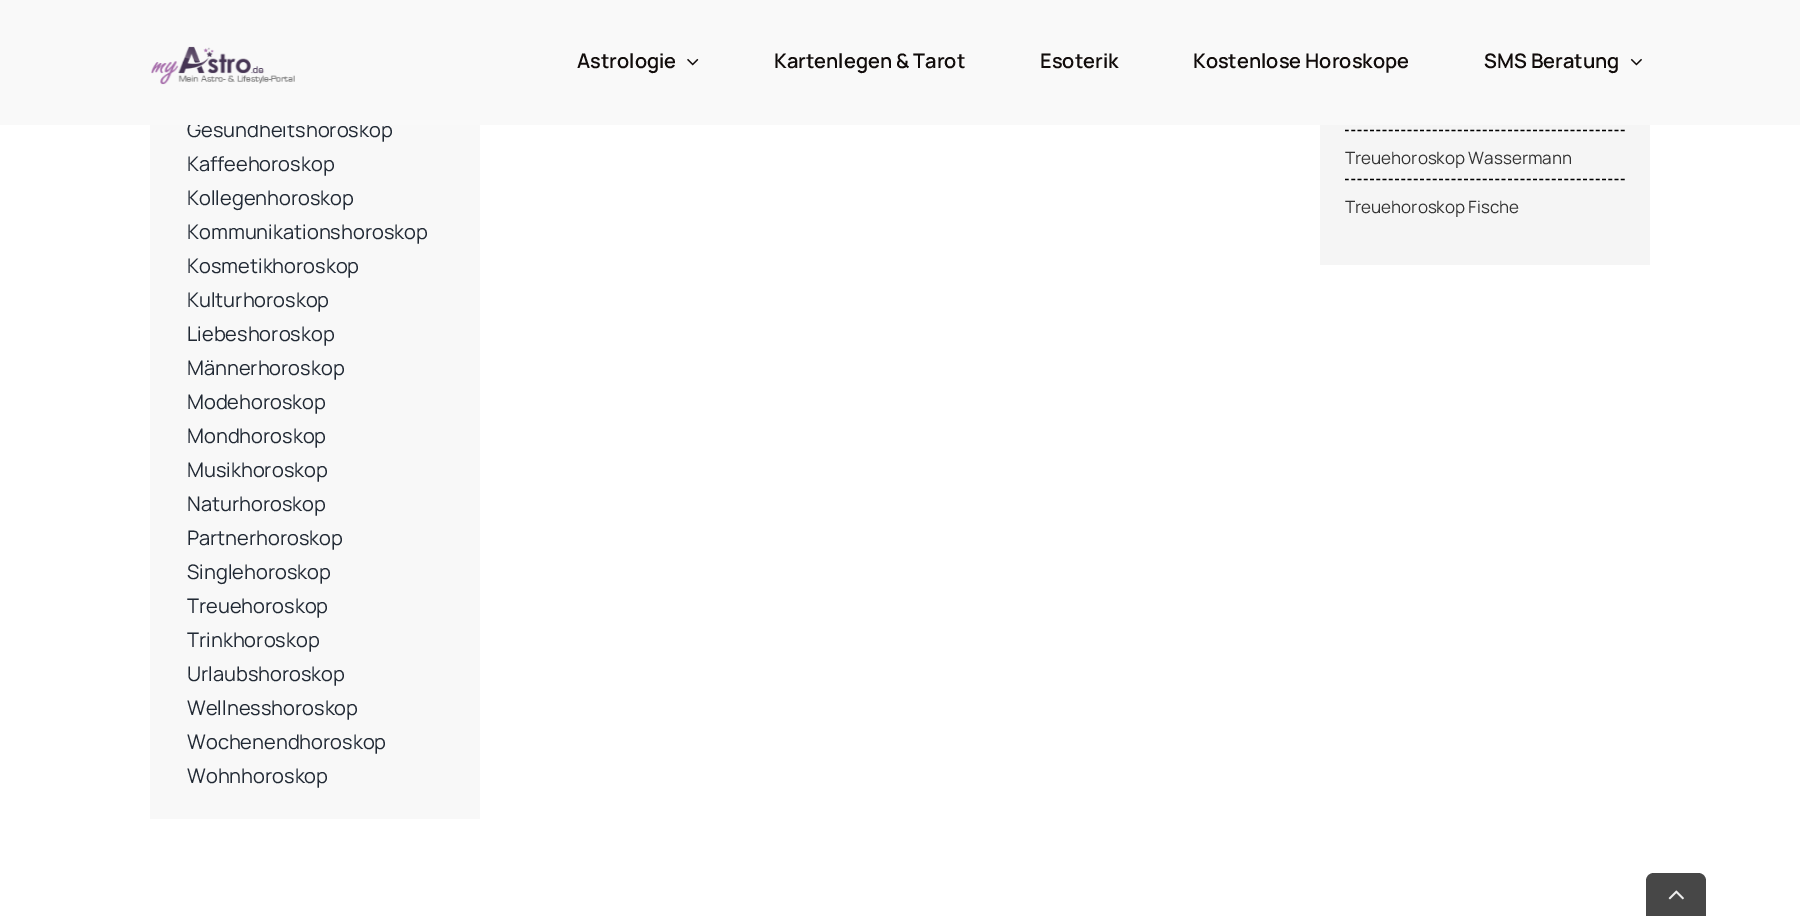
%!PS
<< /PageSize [1800 916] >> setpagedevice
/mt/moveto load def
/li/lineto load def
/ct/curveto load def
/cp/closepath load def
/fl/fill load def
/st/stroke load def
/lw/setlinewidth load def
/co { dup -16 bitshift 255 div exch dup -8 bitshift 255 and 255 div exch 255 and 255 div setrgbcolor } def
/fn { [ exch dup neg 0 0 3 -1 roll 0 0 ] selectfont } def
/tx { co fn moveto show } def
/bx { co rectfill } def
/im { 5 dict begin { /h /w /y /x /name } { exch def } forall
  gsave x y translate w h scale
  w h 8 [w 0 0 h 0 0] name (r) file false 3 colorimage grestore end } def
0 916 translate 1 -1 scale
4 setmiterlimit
0 0 1800 916 16#FFFFFF bx
150 125 330 694 16#F8F8F8 bx
1320 125 330 140 16#F5F5F5 bx
16#000000 co
1.2 lw
[3.75 2.52] 0 setdash
1345 130.5 mt 1625 130.5 li st
1345 179.5 mt 1625 179.5 li st
16#474747 co
1654 873 mt 1698 873 li 1702.5 873 1706 876.5 1706 881 ct 1706 916 li 1646 916 li 1646 881 li 1646 876.5 1649.5 873 1654 873 ct cp fl
(media/4.raw) 1668 890 16 10 im
(Gesundheitshoroskop) 187 137 /Manrope-Regular 20 16#212934 tx
0 0 1800 125 16#F9F9F9 bx
(media/3.raw) 1630 58 12 8 im
(SMS Beratung) 1484 68 /Manrope-SemiBold 20 16#110C0B tx
(Kostenlose Horoskope) 1193 68 /Manrope-SemiBold 20 16#110C0B tx
(Esoterik) 1040 68 /Manrope-SemiBold 20 16#110C0B tx
(Kartenlegen & Tarot) 774 68 /Manrope-SemiBold 20 16#110C0B tx
(media/2.raw) 687 58 12 8 im
(Astrologie) 577 68 /Manrope-SemiBold 20 16#110C0B tx
(media/1.raw) 151 46 144 39 im
(Kaffeehoroskop) 187 171 /Manrope-Regular 20 16#212934 tx
(Kollegenhoroskop) 187 205 /Manrope-Regular 20 16#212934 tx
(Kommunikationshoroskop) 187 239 /Manrope-Regular 20 16#212934 tx
(Kosmetikhoroskop) 187 273 /Manrope-Regular 20 16#212934 tx
(Kulturhoroskop) 187 307 /Manrope-Regular 20 16#212934 tx
(Liebeshoroskop) 187 341 /Manrope-Regular 20 16#212934 tx
(Männerhoroskop) 187 375 /Manrope-Regular 20 16#212934 tx
(Modehoroskop) 187 409 /Manrope-Regular 20 16#212934 tx
(Mondhoroskop) 187 443 /Manrope-Regular 20 16#212934 tx
(Musikhoroskop) 187 477 /Manrope-Regular 20 16#212934 tx
(Naturhoroskop) 187 511 /Manrope-Regular 20 16#212934 tx
(Partnerhoroskop) 187 545 /Manrope-Regular 20 16#212934 tx
(Singlehoroskop) 187 579 /Manrope-Regular 20 16#212934 tx
(Treuehoroskop) 187 613 /Manrope-Regular 20 16#212934 tx
(Trinkhoroskop) 187 647 /Manrope-Regular 20 16#212934 tx
(Urlaubshoroskop) 187 681 /Manrope-Regular 20 16#212934 tx
(Wellnesshoroskop) 187 715 /Manrope-Regular 20 16#212934 tx
(Wochenendhoroskop) 187 749 /Manrope-Regular 20 16#212934 tx
(Wohnhoroskop) 187 783 /Manrope-Regular 20 16#212934 tx
(Treuehoroskop Wassermann) 1345 164 /Manrope-Regular 17 16#333333 tx
(Treuehoroskop Fische) 1345 213 /Manrope-Regular 17 16#333333 tx
showpage
